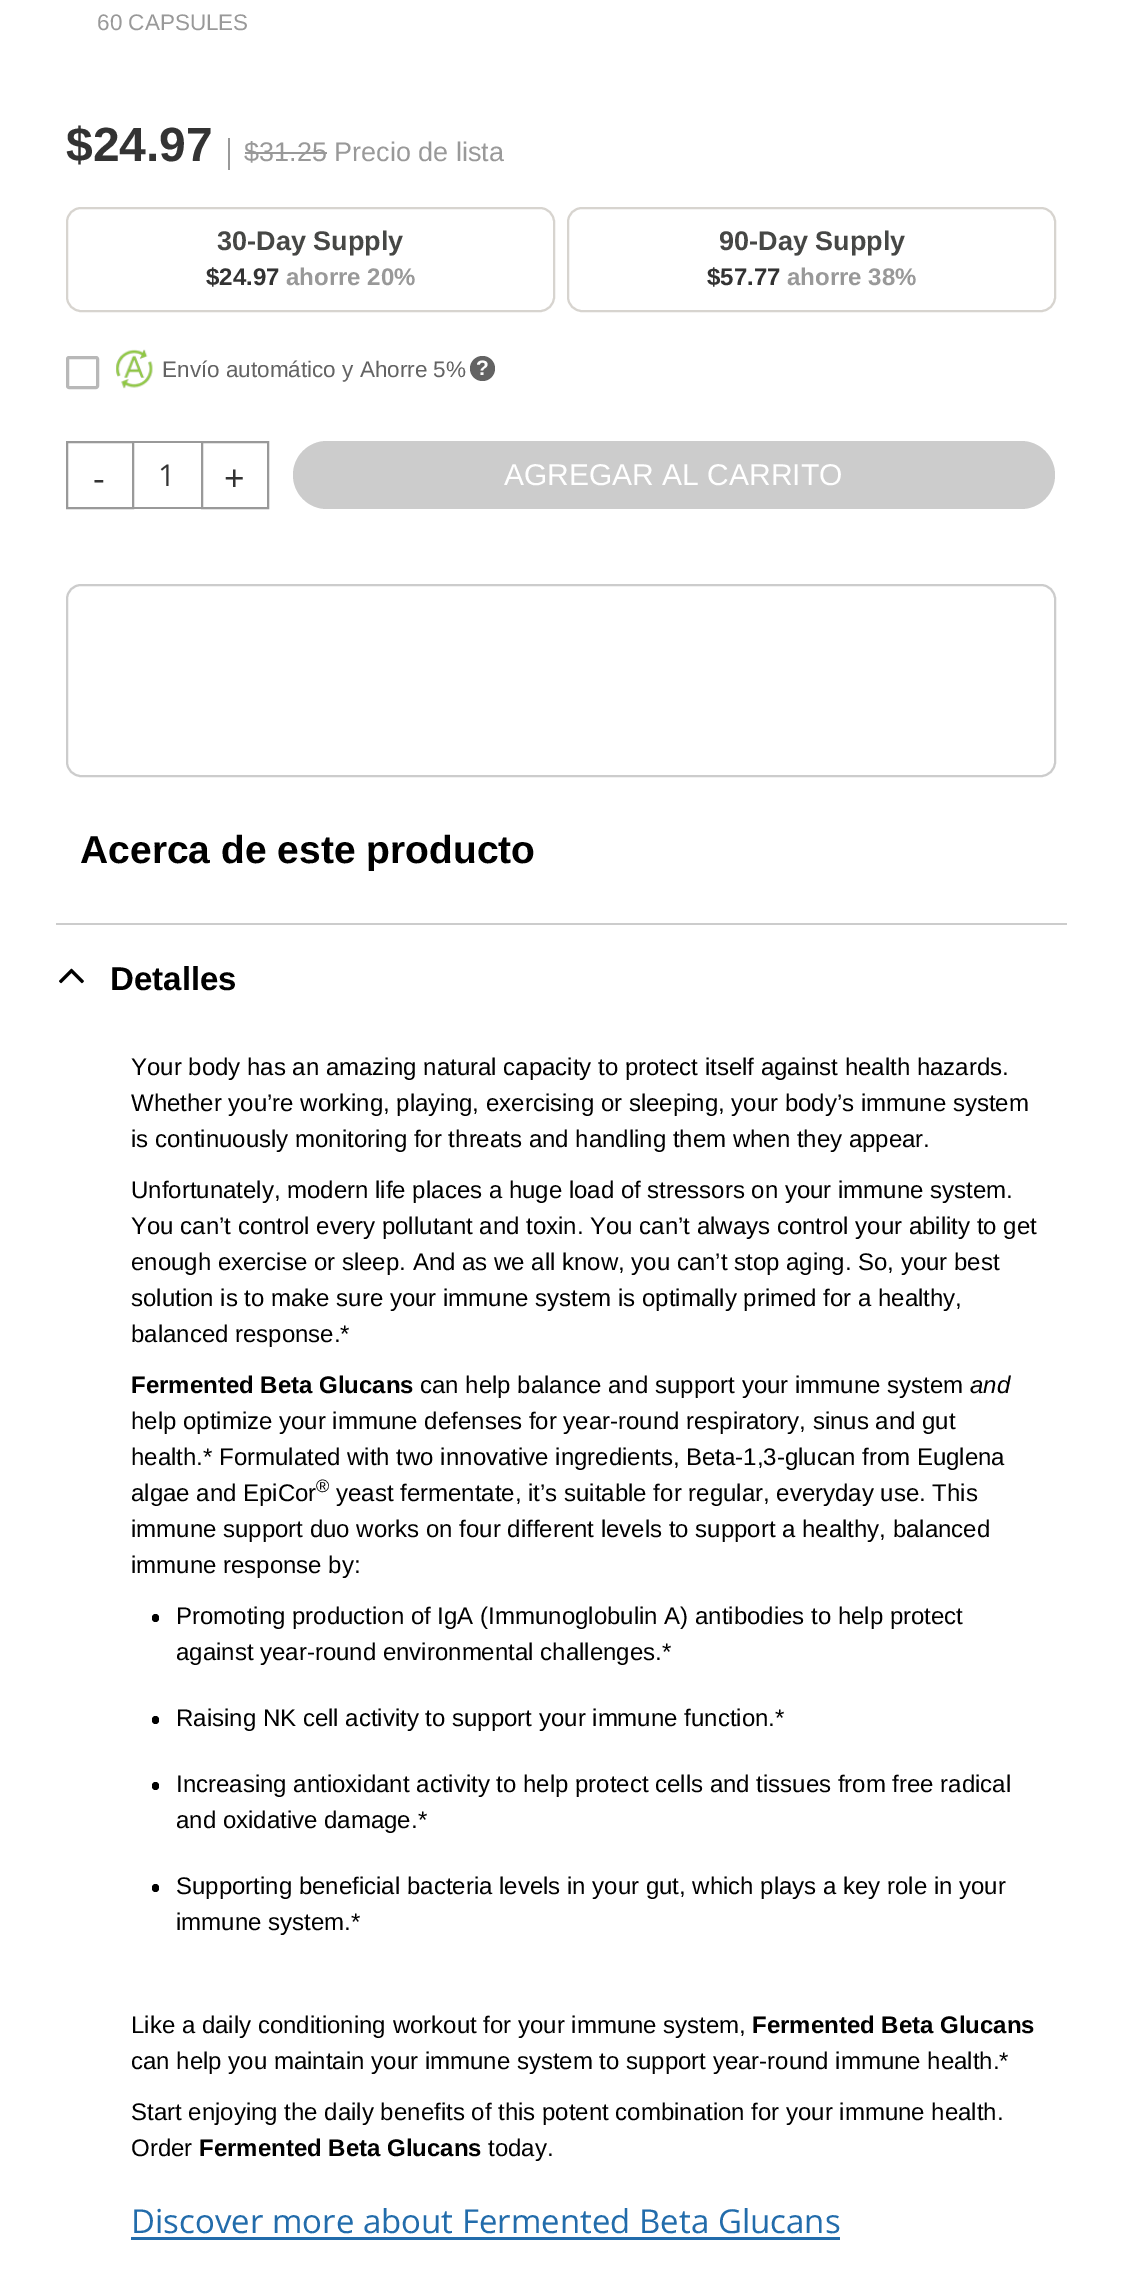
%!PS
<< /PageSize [1122 2273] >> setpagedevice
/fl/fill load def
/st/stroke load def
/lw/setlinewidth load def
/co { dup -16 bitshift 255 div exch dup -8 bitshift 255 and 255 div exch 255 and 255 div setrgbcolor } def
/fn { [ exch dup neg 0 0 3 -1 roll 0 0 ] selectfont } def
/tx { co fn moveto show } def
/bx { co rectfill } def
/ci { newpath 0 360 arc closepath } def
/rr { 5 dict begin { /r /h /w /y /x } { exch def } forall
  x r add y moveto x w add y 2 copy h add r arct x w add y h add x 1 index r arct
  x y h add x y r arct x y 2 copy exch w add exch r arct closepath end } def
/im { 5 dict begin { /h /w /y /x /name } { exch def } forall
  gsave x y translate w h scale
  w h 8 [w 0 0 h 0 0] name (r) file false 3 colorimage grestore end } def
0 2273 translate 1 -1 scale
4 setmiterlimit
0 0 1122 2273 16#FFFFFF bx
228 138 2 32 16#999999 bx
245 152 82 2 16#999999 bx
16#D7D4CF co
2 lw
67 208 487 103 14 rr st
568 208 487 103 14 rr st
(media/1.raw) 116 349 37 40 im
16#B8B8B8 co
3 lw
67.5 357.5 30 30 1.5 rr st
16#636363 co
482.5 368.5 12.5 ci fl
16#999999 co
2 lw
67 442 66 66 rectstroke
134 441 67 2 16#999999 bx
134 507 67 2 16#999999 bx
202 442 66 66 rectstroke
16#CCCCCC co
293 441 762 68 34 rr fl
67 585 988 191 14 rr st
56 923 1011 2 16#CCCCCC bx
(media/2.raw) 59 968 25 16 im
16#000000 co
152 1614 7 8 3.5 rr fl
152 1716 7 8 3.5 rr fl
152 1782 7 8 3.5 rr fl
152 1884 7 8 3.5 rr fl
131 2237 709 3 16#226CAB bx
(60 CAPSULES) 97 30 /LiberationSans-Regular 22.5 16#999999 tx
($24.97) 66 161 /LiberationSans-Bold 48 16#333333 tx
($31.25 Precio de lista) 244 161 /LiberationSans-Regular 27 16#999999 tx
(30-Day Supply) 217 250 /LiberationSans-Bold 27 16#464745 tx
($24.97) 206 285 /LiberationSans-Bold 24 16#333333 tx
(ahorre 20%) 286 285 /LiberationSans-Bold 24 16#999999 tx
(90-Day Supply) 719 250 /LiberationSans-Bold 27 16#464745 tx
($57.77) 707 285 /LiberationSans-Bold 24 16#333333 tx
(ahorre 38%) 787 285 /LiberationSans-Bold 24 16#999999 tx
(Envío automático y Ahorre 5%) 162 377 /LiberationSans-Regular 22.5 16#636363 tx
(?) 476 375 /LiberationSans-Bold 21 16#FFFFFF tx
(-) 93 491 /OpenSans-Regular 36 16#333333 tx
(1) 158 486 /OpenSans-Regular 30 16#333333 tx
(+) 224 491 /OpenSans-Regular 36 16#333333 tx
(AGREGAR AL CARRITO) 504 485 /LiberationSans-Regular 30 16#FFFFFF tx
(Acerca de este producto) 80 863 /LiberationSans-Bold 39 16#000000 tx
(Detalles) 110 990 /LiberationSans-Bold 33 16#000000 tx
(Your body has an amazing natural capacity to protect itself against health hazards.) 131 1075 /LiberationSans-Regular 24 16#000000 tx
(Whether you’re working, playing, exercising or sleeping, your body’s immune system) 131 1111 /LiberationSans-Regular 24 16#000000 tx
(is continuously monitoring for threats and handling them when they appear.) 131 1147 /LiberationSans-Regular 24 16#000000 tx
(Unfortunately, modern life places a huge load of stressors on your immune system.) 131 1198 /LiberationSans-Regular 24 16#000000 tx
(You can’t control every pollutant and toxin. You can’t always control your ability to get) 131 1234 /LiberationSans-Regular 24 16#000000 tx
(enough exercise or sleep. And as we all know, you can’t stop aging. So, your best) 131 1270 /LiberationSans-Regular 24 16#000000 tx
(solution is to make sure your immune system is optimally primed for a healthy,) 131 1306 /LiberationSans-Regular 24 16#000000 tx
(balanced response.*) 131 1342 /LiberationSans-Regular 24 16#000000 tx
(Fermented Beta Glucans) 131 1393 /LiberationSans-Bold 24 16#000000 tx
(can help balance and support your immune system) 420 1393 /LiberationSans-Regular 24 16#000000 tx
(and) 970 1393 /LiberationSans-Italic 24 16#000000 tx
(help optimize your immune defenses for year-round respiratory, sinus and gut) 131 1429 /LiberationSans-Regular 24 16#000000 tx
(health.* Formulated with two innovative ingredients, Beta-1,3-glucan from Euglena) 131 1465 /LiberationSans-Regular 24 16#000000 tx
(algae and EpiCor) 131 1501 /LiberationSans-Regular 24 16#000000 tx
(®) 316 1492 /LiberationSans-Regular 18 16#000000 tx
(yeast fermentate, it’s suitable for regular, everyday use. This) 336 1501 /LiberationSans-Regular 24 16#000000 tx
(immune support duo works on four different levels to support a healthy, balanced) 131 1537 /LiberationSans-Regular 24 16#000000 tx
(immune response by:) 131 1573 /LiberationSans-Regular 24 16#000000 tx
(Promoting production of IgA \(Immunoglobulin A\) antibodies to help protect) 176 1624 /LiberationSans-Regular 24 16#000000 tx
(against year-round environmental challenges.*) 176 1660 /LiberationSans-Regular 24 16#000000 tx
(Raising NK cell activity to support your immune function.*) 176 1726 /LiberationSans-Regular 24 16#000000 tx
(Increasing antioxidant activity to help protect cells and tissues from free radical) 176 1792 /LiberationSans-Regular 24 16#000000 tx
(and oxidative damage.*) 176 1828 /LiberationSans-Regular 24 16#000000 tx
(Supporting beneficial bacteria levels in your gut, which plays a key role in your) 176 1894 /LiberationSans-Regular 24 16#000000 tx
(immune system.*) 176 1930 /LiberationSans-Regular 24 16#000000 tx
(Like a daily conditioning workout for your immune system,) 131 2033 /LiberationSans-Regular 24 16#000000 tx
(Fermented Beta Glucans) 752 2033 /LiberationSans-Bold 24 16#000000 tx
(can help you maintain your immune system to support year-round immune health.*) 131 2069 /LiberationSans-Regular 24 16#000000 tx
(Start enjoying the daily benefits of this potent combination for your immune health.) 131 2120 /LiberationSans-Regular 24 16#000000 tx
(Order) 131 2156 /LiberationSans-Regular 24 16#000000 tx
(Fermented Beta Glucans) 199 2156 /LiberationSans-Bold 24 16#000000 tx
(today.) 488 2156 /LiberationSans-Regular 24 16#000000 tx
(Discover more about Fermented Beta Glucans) 131 2233 /OpenSans-Regular 33 16#226CAB tx
showpage
